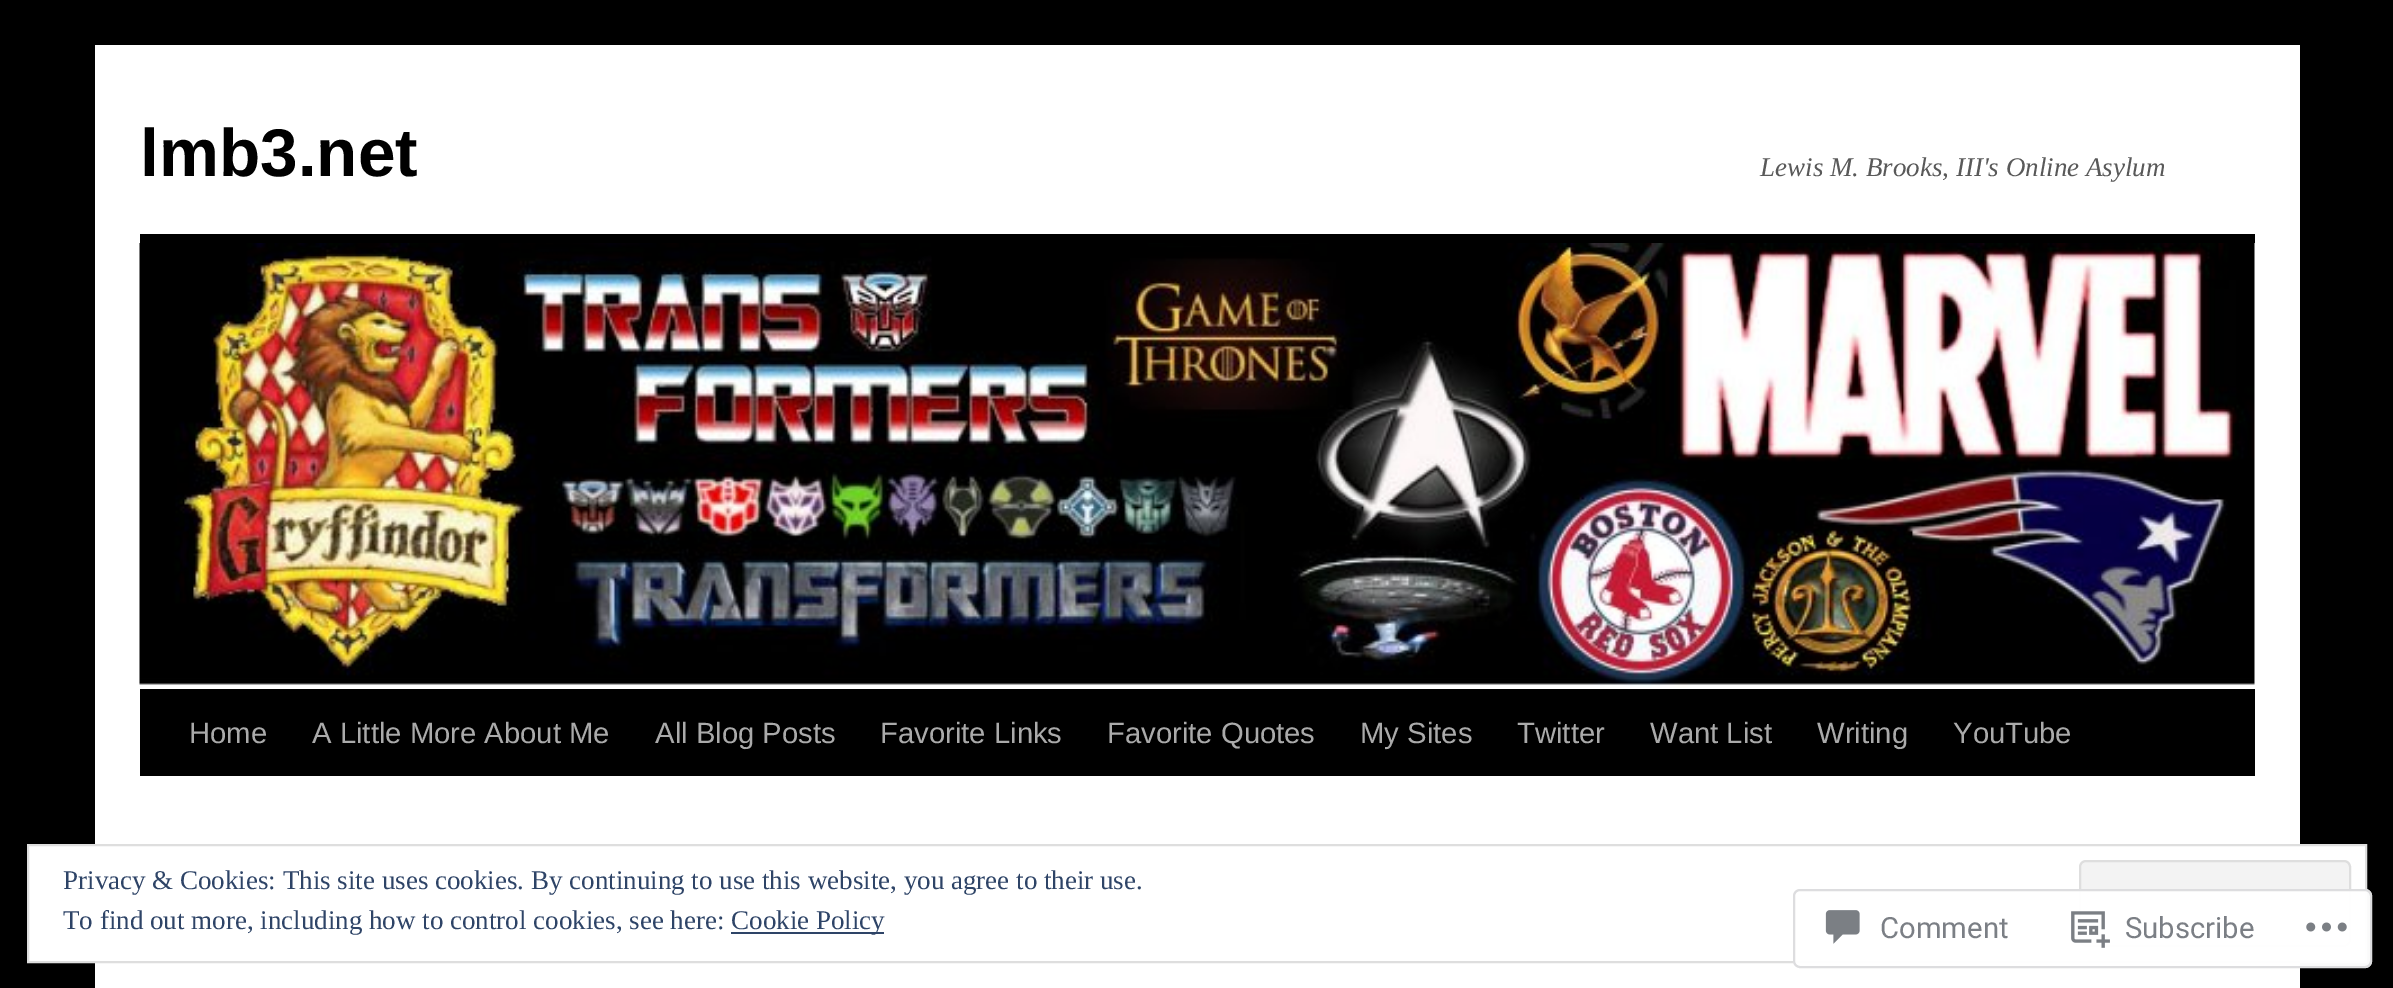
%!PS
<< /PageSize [2393 988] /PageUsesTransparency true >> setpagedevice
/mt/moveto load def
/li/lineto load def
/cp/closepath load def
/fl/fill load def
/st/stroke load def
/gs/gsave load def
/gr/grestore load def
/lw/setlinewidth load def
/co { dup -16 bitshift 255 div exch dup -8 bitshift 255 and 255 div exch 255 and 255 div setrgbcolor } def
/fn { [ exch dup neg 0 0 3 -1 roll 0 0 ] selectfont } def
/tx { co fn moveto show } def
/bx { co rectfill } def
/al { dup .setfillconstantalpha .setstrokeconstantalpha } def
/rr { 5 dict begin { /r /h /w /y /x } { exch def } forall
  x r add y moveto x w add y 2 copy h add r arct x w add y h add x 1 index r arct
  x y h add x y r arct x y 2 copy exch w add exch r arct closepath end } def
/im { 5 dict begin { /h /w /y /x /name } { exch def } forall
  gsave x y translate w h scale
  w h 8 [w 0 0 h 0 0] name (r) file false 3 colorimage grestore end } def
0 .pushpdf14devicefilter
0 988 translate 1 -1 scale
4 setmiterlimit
0 0 2393 988 16#000000 bx
95 45 2205 943 16#FFFFFF bx
140 234 2115 9 16#000000 bx
140 689 2115 87 16#000000 bx
(media/1.raw) 139 243 2116 445 im
16#FFFFFF co
28 845 mt 2366 845 li 2366 962 li 28 962 li cp gs fl gr
16#DEDEDE co
2 lw
st
16#F3F3F3 co
2080 861 270 85 6 rr gs fl gr
16#DEDEDE co
st
731 932 153 2 16#2E4467 bx
0.98 al
16#FFFFFF co
1793 889 579 79 7 rr fl
16#DCDCDE co
1794 890 577 77 6 rr st
1 al
(media/2.raw) 1825 910 35 34 im
(media/3.raw) 2071 911 39 37 im
(media/4.raw) 2306 922 41 10 im
(lmb3.net) 140 176 /LiberationSans-Bold 67.5 16#000000 tx
(Lewis M. Brooks, III's Online Asylum) 1760 176 /LiberationSerif-Italic 27 16#595959 tx
(Home) 189 743 /LiberationSans-Regular 29.25 16#AAAAAA tx
(A Little More About Me) 312 743 /LiberationSans-Regular 29.25 16#AAAAAA tx
(All Blog Posts) 655 743 /LiberationSans-Regular 29.25 16#AAAAAA tx
(Favorite Links) 880 743 /LiberationSans-Regular 29.25 16#AAAAAA tx
(Favorite Quotes) 1107 743 /LiberationSans-Regular 29.25 16#AAAAAA tx
(My Sites) 1360 743 /LiberationSans-Regular 29.25 16#AAAAAA tx
(Twitter) 1517 743 /LiberationSans-Regular 29.25 16#AAAAAA tx
(Want List) 1650 743 /LiberationSans-Regular 29.25 16#AAAAAA tx
(Writing) 1817 743 /LiberationSans-Regular 29.25 16#AAAAAA tx
(YouTube) 1953 743 /LiberationSans-Regular 29.25 16#AAAAAA tx
(Privacy & Cookies: This site uses cookies. By continuing to use this website, you agree to their use.) 63 889 /LiberationSerif-Regular 27 16#2E4467 tx
(To find out more, including how to control cookies, see here:) 63 929 /LiberationSerif-Regular 27 16#2E4467 tx
(Cookie Policy) 731 929 /LiberationSerif-Regular 27 16#2E4467 tx
(Comment) 1880 938 /Roboto-Regular 29.25 16#7B7F85 tx
(Subscribe) 2125 938 /Roboto-Regular 29.25 16#7B7F85 tx
.poppdf14devicefilter showpage
